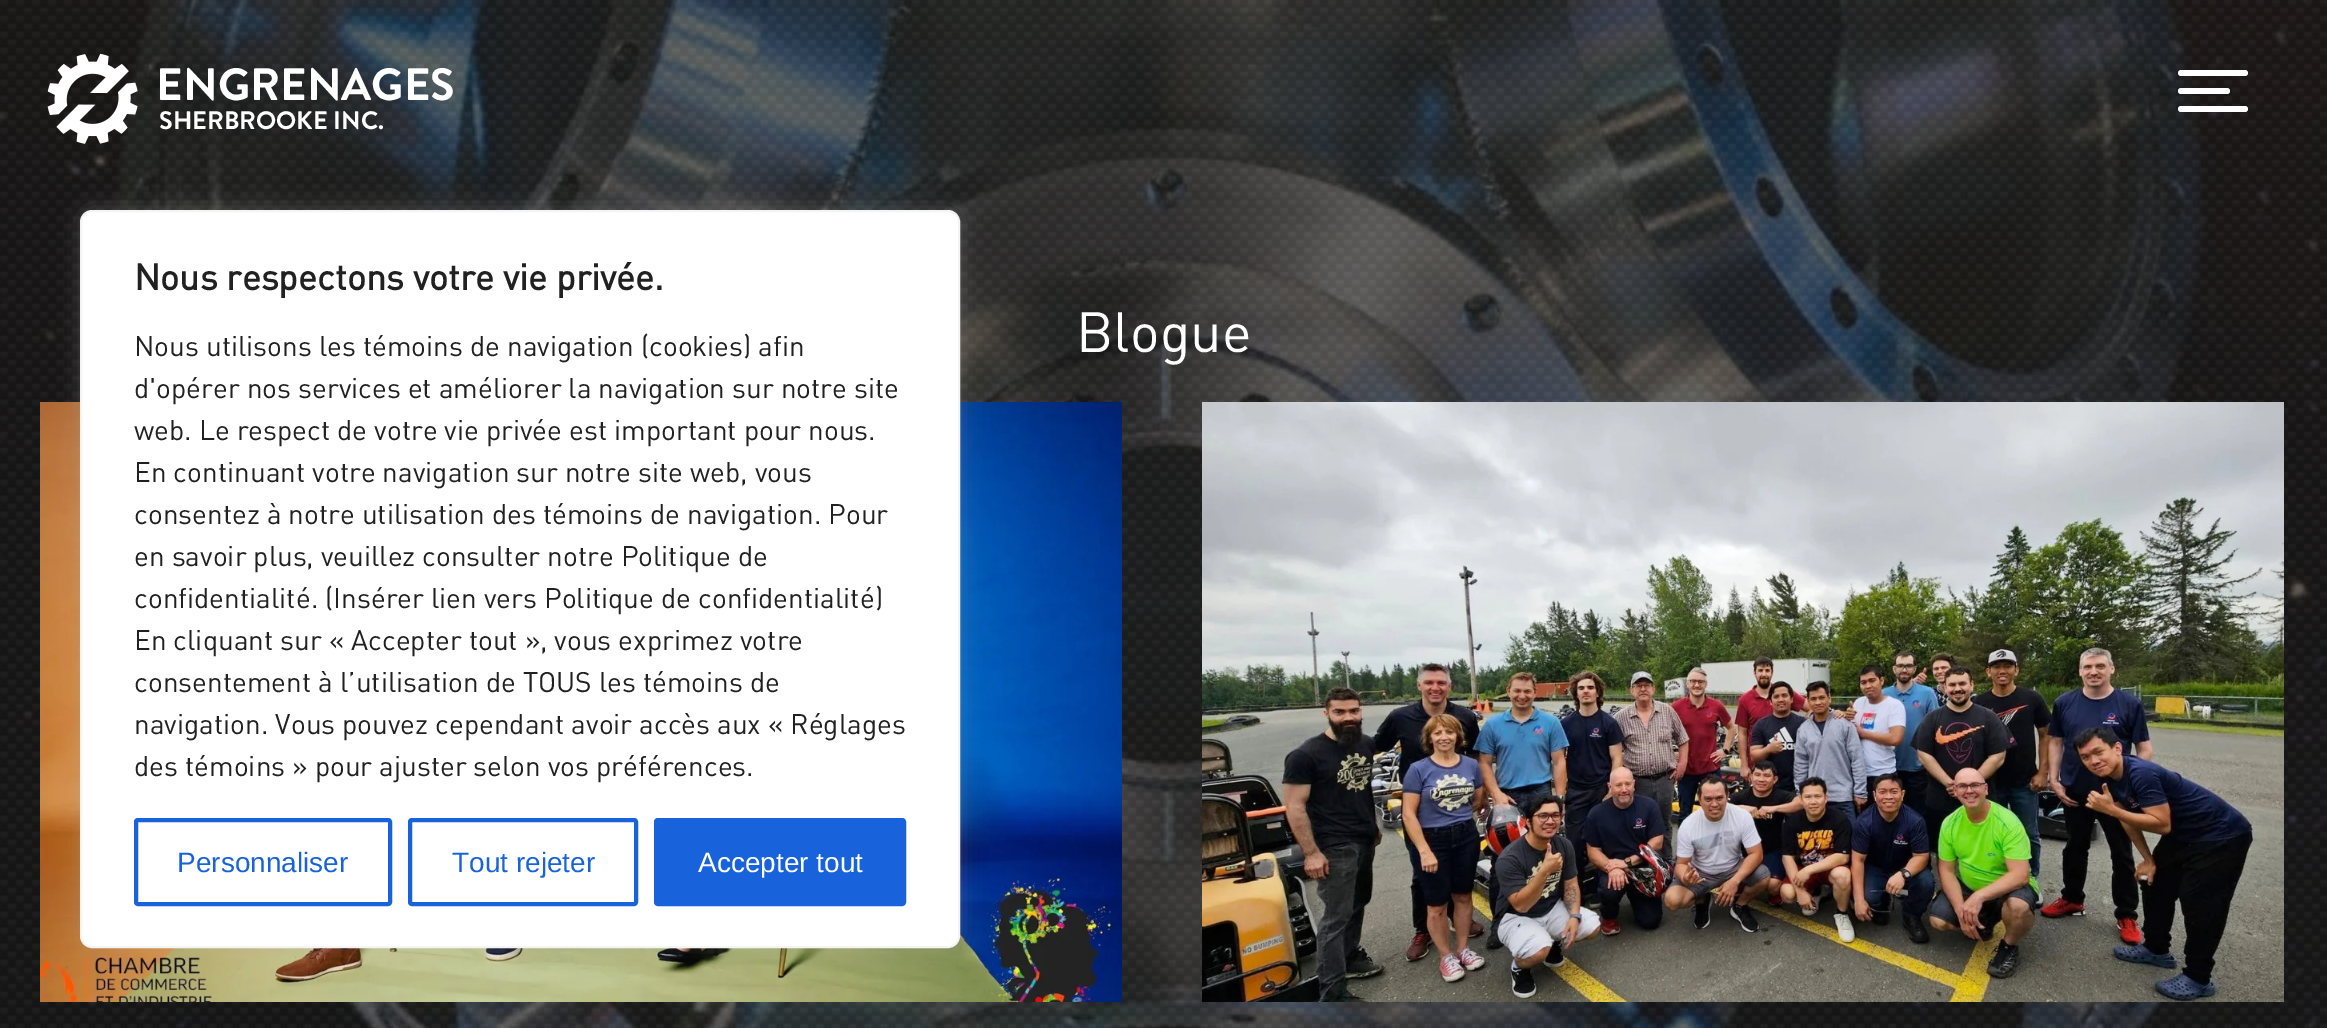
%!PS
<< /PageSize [2327 1028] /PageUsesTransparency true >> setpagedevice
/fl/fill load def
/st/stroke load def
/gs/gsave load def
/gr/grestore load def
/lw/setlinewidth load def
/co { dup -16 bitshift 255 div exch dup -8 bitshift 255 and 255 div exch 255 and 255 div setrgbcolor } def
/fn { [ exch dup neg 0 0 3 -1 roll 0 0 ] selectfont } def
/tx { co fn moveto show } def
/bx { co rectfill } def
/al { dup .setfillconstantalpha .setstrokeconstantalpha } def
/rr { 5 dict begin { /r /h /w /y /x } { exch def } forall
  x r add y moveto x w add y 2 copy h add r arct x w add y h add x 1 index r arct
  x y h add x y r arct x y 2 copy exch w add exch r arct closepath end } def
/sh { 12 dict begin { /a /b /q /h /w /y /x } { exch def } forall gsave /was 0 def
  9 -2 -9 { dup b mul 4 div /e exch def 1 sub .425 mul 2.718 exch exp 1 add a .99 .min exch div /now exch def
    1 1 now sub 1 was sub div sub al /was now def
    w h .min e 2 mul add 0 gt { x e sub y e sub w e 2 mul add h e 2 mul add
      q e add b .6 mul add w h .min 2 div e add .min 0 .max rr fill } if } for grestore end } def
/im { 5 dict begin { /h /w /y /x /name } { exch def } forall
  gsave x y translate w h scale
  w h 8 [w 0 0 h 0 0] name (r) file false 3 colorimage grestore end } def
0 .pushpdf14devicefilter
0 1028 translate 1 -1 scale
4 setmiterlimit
0 0 2327 1028 16#FFFFFF bx
(media/2.raw) 0 0 2327 1028 im
(media/3.raw) 0 0 2327 1028 im
(media/1.raw) 47 53 91 91 im
2178 70 70 6 3 rr fl
2178 88 52 6 3 rr fl
2178 106 70 6 3 rr fl
(media/4.raw) 40 402 1082 600 im
16#ACABAB co
80 208 880 738 12 10 .3 sh
16#FFFFFF co
81 211 878 736 11 rr gs fl gr
16#F4F4F4 co
2 lw
st
16#1863DC co
4 lw
136 820 254 84 2 rr st
410 820 226 84 2 rr st
656 820 248 84 2 rr gs fl gr
st
(media/5.raw) 1202 402 1082 600 im
(ENGRENAGES) 156 100 /BrandonGrotesque-Bold 45.25 16#FFFFFF tx
(SHERBROOKE INC.) 159 129 /BrandonGrotesque-Bold 25.25 16#FFFFFF tx
(Nous respectons votre vie privée.) 134 290 /DIN-Bold 36 16#212121 tx
(Nous utilisons les témoins de navigation \(cookies\) afin) 134 356 /DIN-Regular 28 16#212121 tx
(d'opérer nos services et améliorer la navigation sur notre site) 134 398 /DIN-Regular 28 16#212121 tx
(web. Le respect de votre vie privée est important pour nous.) 134 440 /DIN-Regular 28 16#212121 tx
(En continuant votre navigation sur notre site web, vous) 134 482 /DIN-Regular 28 16#212121 tx
(consentez à notre utilisation des témoins de navigation. Pour) 134 524 /DIN-Regular 28 16#212121 tx
(en savoir plus, veuillez consulter notre Politique de) 134 566 /DIN-Regular 28 16#212121 tx
(confidentialité. \(Insérer lien vers Politique de confidentialité\)) 134 608 /DIN-Regular 28 16#212121 tx
(En cliquant sur « Accepter tout », vous exprimez votre) 134 650 /DIN-Regular 28 16#212121 tx
(consentement à l’utilisation de TOUS les témoins de) 134 692 /DIN-Regular 28 16#212121 tx
(navigation. Vous pouvez cependant avoir accès aux « Réglages) 134 734 /DIN-Regular 28 16#212121 tx
(des témoins » pour ajuster selon vos préférences.) 134 776 /DIN-Regular 28 16#212121 tx
(Personnaliser) 177 872 /LiberationSans-Regular 28 16#1863DC tx
(Tout rejeter) 452 872 /LiberationSans-Regular 28 16#1863DC tx
(Accepter tout) 698 872 /LiberationSans-Regular 28 16#FFFFFF tx
(Blogue) 1076 352 /DIN-Regular 56 16#FFFFFF tx
.poppdf14devicefilter showpage
